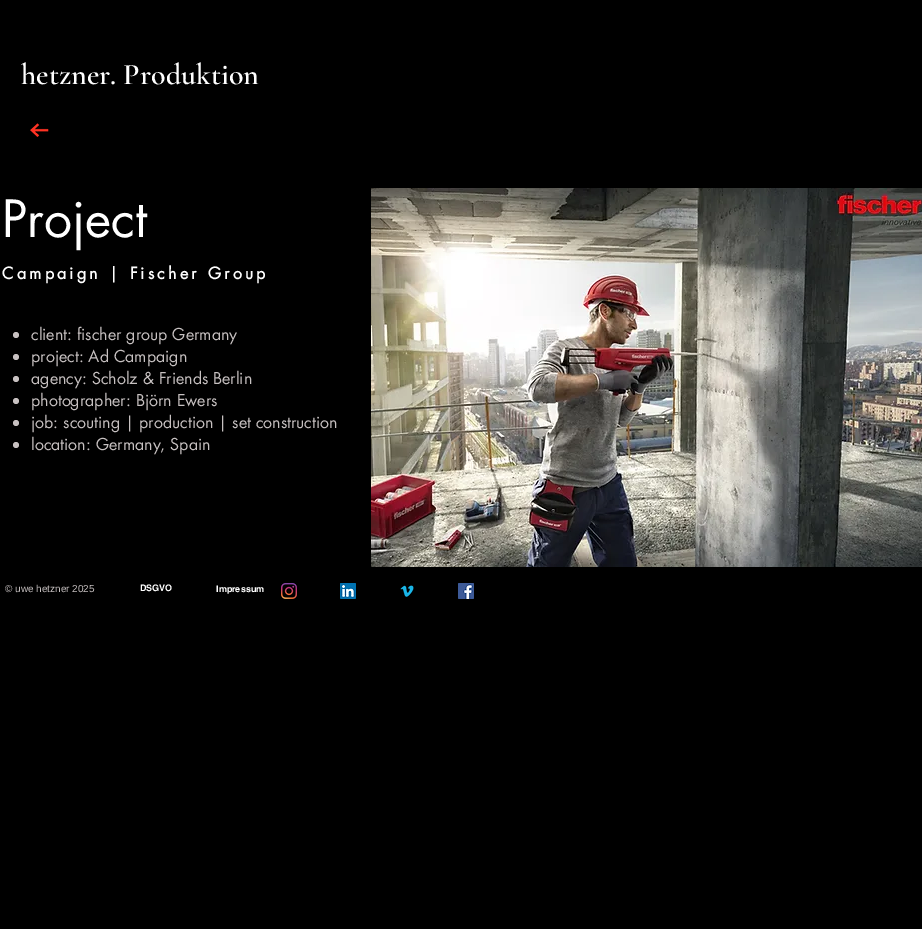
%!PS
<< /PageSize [922 929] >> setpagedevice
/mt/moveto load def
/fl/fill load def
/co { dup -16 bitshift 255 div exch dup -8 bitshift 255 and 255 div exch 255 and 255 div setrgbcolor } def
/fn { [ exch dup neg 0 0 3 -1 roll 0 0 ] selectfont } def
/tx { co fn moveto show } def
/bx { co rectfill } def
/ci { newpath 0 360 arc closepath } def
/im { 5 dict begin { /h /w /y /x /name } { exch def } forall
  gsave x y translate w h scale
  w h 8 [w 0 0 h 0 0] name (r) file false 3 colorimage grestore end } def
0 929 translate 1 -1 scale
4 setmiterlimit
0 0 922 929 16#000000 bx
(media/1.raw) 30 123 19 14 im
16#C7C1C1 co
16 335 3 ci fl
16 357 3 ci fl
16 379 3 ci fl
16 401 3 ci fl
16 423 3 ci fl
16 445 3 ci fl
(media/2.raw) 371 188 551 379 im
(media/3.raw) 281 583 16 16 im
(media/4.raw) 340 583 16 16 im
(media/5.raw) 400 585 14 12 im
(media/6.raw) 458 583 16 16 im
(hetzner. Produktion) 21 84 /CormorantGaramond-SemiBold 30 16#FFFFFF tx
(Project) 2 237 /futura-Regular 50 16#FFFFFF tx
/futura-Bold 16 fn
2 279 mt 3.2 0 (Campaign | Fischer Group) ashow
(client: fischer group Germany) 31 340 /futura-Regular 16 16#C7C1C1 tx
(project: Ad Campaign) 31 362 /futura-Regular 16 16#C7C1C1 tx
(agency: Scholz & Friends Berlin) 31 384 /futura-Regular 16 16#C7C1C1 tx
(photographer: Björn Ewers) 31 406 /futura-Regular 16 16#C7C1C1 tx
(job: scouting | production | set construction) 31 428 /futura-Regular 16 16#C7C1C1 tx
(location: Germany, Spain) 31 450 /futura-Regular 16 16#C7C1C1 tx
(© uwe hetzner 2025) 5 592 /LiberationSans-Regular 10 16#C7C1C1 tx
(DSGVO) 140 591 /helvetica-Bold 9 16#FFFFFF tx
(Impressum) 216 592 /helvetica-Bold 9 16#FFFFFF tx
showpage
